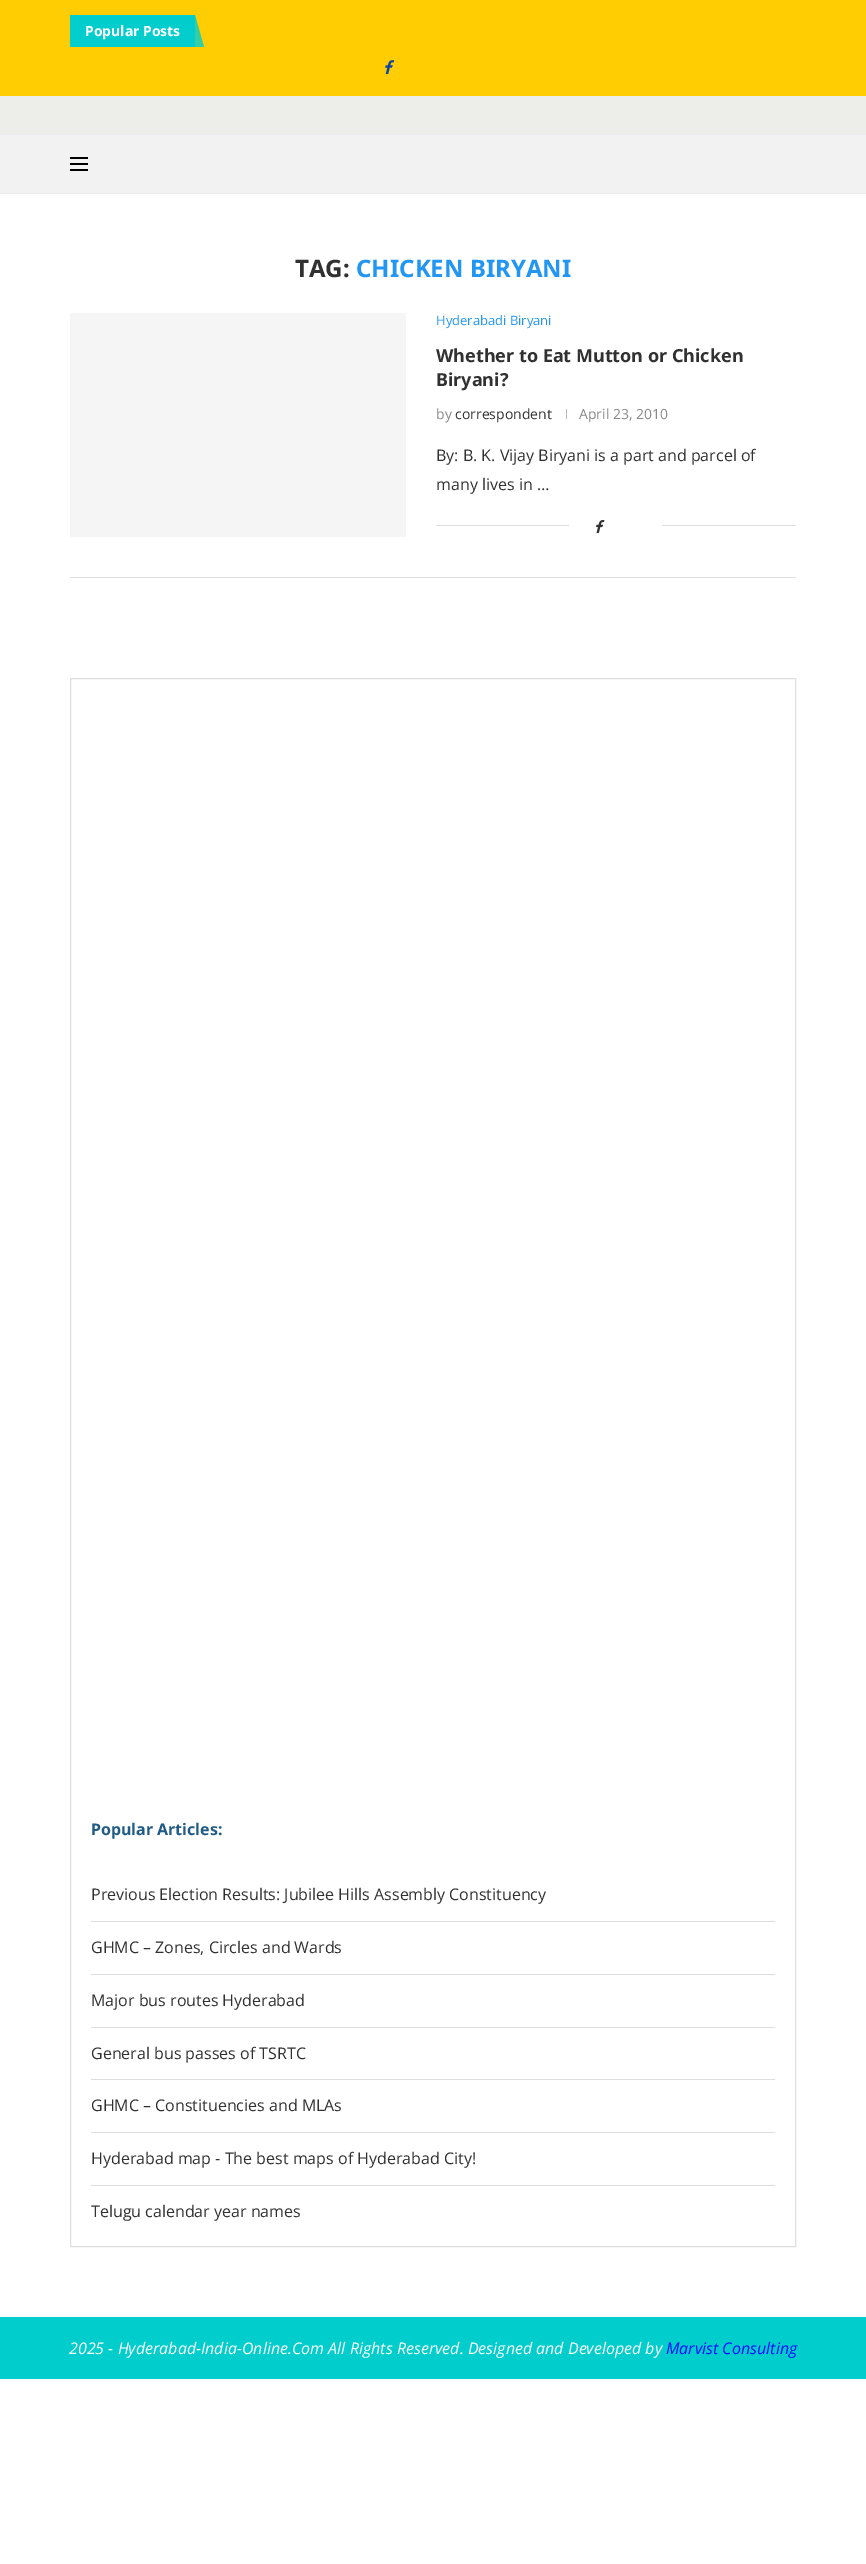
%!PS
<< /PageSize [866 2564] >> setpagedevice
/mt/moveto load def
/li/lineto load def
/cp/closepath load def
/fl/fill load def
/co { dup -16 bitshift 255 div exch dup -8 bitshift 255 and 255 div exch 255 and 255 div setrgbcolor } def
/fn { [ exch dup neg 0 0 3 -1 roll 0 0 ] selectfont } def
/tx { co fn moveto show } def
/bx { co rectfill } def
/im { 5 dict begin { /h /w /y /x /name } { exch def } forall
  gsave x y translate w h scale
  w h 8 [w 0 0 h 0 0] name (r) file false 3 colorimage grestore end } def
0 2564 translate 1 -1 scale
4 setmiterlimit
0 0 866 2564 16#FFFFFF bx
0 0 866 96 16#FFCD02 bx
70 15 125 32 16#01CDCC bx
16#34CDA4 co
204 47 mt 195 47 li 195 15 li cp fl
(media/1.raw) 385 60 10 15 im
0 96 866 38 16#EDEDEA bx
0 135 866 58 16#F2F2F2 bx
0 134 866 1 16#ECECEC bx
0 193 866 1 16#ECECEC bx
70 157 18 2 16#000000 bx
70 163 18 2 16#000000 bx
70 169 18 2 16#000000 bx
70 577 726 1 16#DEDEDE bx
70 313 336 224 16#F5F5F5 bx
566 409 1 10 16#B8B8B8 bx
436 525 360 1 16#DEDEDE bx
569 525 93 1 16#FFFFFF bx
(media/2.raw) 596 520 9 13 im
16#DEDEDE co
70.5 678.5 725 1568 rectstroke
91 1921 684 1 16#DEDEDE bx
91 1974 684 1 16#DEDEDE bx
91 2027 684 1 16#DEDEDE bx
91 2079 684 1 16#DEDEDE bx
91 2132 684 1 16#DEDEDE bx
91 2185 684 1 16#DEDEDE bx
0 2317 866 62 16#01CDCC bx
(Popular Posts) 85 36 /NotoSans-Bold 14 16#FFFFFF tx
(TAG:) 295 277 /NotoSans-Bold 24 16#313131 tx
(CHICKEN BIRYANI) 356 277 /NotoSans-Bold 24 16#2196F3 tx
(Hyderabadi Biryani) 436 325 /OpenSans-Regular 13 16#2196F3 tx
(Whether to Eat Mutton or Chicken) 436 362 /NotoSans-Bold 18 16#313131 tx
(Biryani?) 436 386 /NotoSans-Bold 18 16#313131 tx
(by) 436 419 /OpenSans-Regular 14 16#888888 tx
(correspondent) 455 419 /OpenSans-Regular 14 16#313131 tx
(April 23, 2010) 579 419 /OpenSans-Regular 14 16#888888 tx
(By: B. K. Vijay Biryani is a part and parcel of) 436 461 /OpenSans-Regular 16 16#313131 tx
(many lives in …) 436 490 /OpenSans-Regular 16 16#313131 tx
(Popular Articles:) 91 1835 /NotoSans-Bold 16 16#205B87 tx
(Previous Election Results: Jubilee Hills Assembly Constituency) 91 1900 /OpenSans-Regular 16 16#313131 tx
(GHMC – Zones, Circles and Wards) 91 1953 /OpenSans-Regular 16 16#313131 tx
(Major bus routes Hyderabad) 91 2006 /OpenSans-Regular 16 16#313131 tx
(General bus passes of TSRTC) 91 2059 /OpenSans-Regular 16 16#313131 tx
(GHMC – Constituencies and MLAs) 91 2111 /OpenSans-Regular 16 16#313131 tx
(Hyderabad map - The best maps of Hyderabad City!) 91 2164 /OpenSans-Regular 16 16#313131 tx
(Telugu calendar year names) 91 2217 /OpenSans-Regular 16 16#313131 tx
(2025 - Hyderabad-India-Online.Com All Rights Reserved. Designed and Developed by) 69 2354 /OpenSans-Italic 16 16#FFFFFF tx
(Marvist Consulting) 666 2354 /OpenSans-Italic 16 16#000CFC tx
showpage
